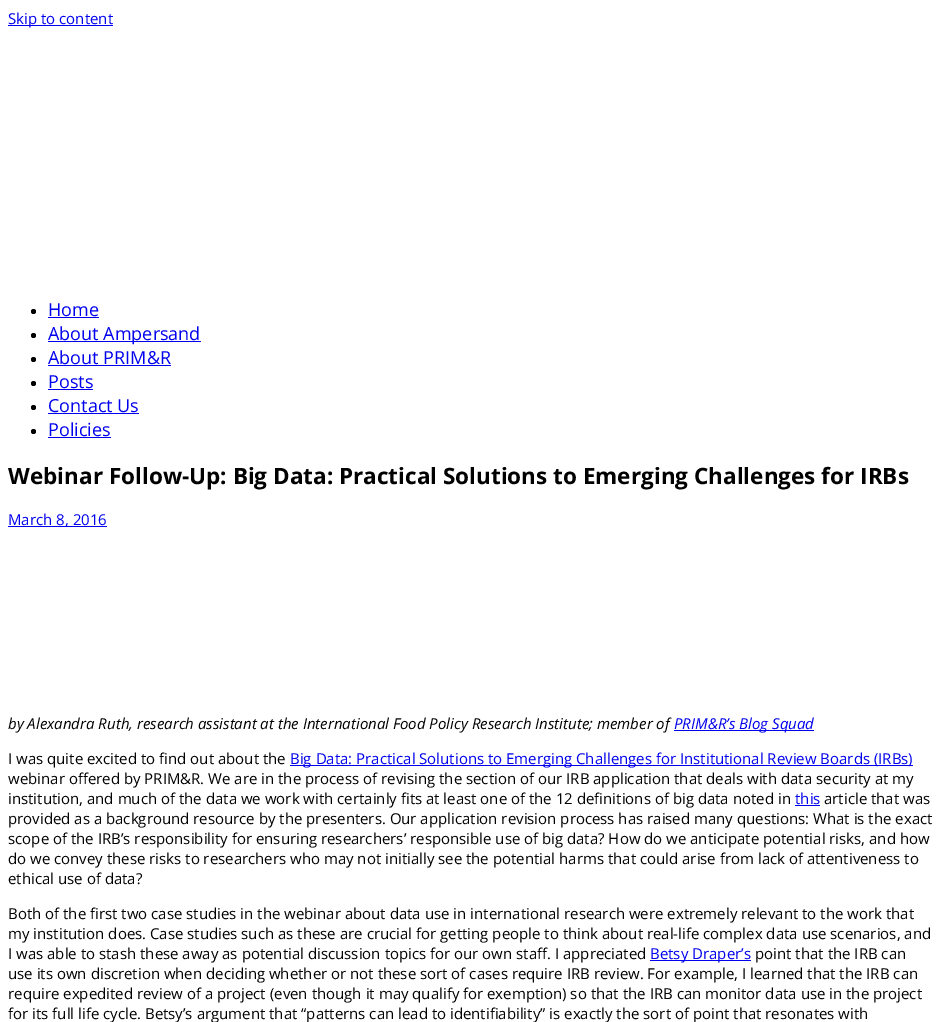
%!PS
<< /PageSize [942 1022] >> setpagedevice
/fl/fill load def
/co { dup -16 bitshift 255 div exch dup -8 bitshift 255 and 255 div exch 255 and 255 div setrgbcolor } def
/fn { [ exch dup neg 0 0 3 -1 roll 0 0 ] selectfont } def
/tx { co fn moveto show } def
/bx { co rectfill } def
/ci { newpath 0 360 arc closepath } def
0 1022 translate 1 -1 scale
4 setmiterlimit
0 0 942 1022 16#FFFFFF bx
8 25 105 1 16#0000EE bx
16#000000 co
33.5 311.5 2.5 ci fl
48 317 51 1 16#0000EE bx
16#000000 co
33.5 335.5 2.5 ci fl
48 341 153 1 16#0000EE bx
16#000000 co
33.5 359.5 2.5 ci fl
48 365 123 1 16#0000EE bx
16#000000 co
33.5 383.5 2.5 ci fl
48 389 45 1 16#0000EE bx
16#000000 co
33.5 407.5 2.5 ci fl
48 413 91 1 16#0000EE bx
16#000000 co
33.5 431.5 2.5 ci fl
48 437 63 1 16#0000EE bx
8 526 99 1 16#0000EE bx
674 730 140 1 16#0000EE bx
290 765 623 1 16#0000EE bx
795 805 25 1 16#0000EE bx
650 960 101 1 16#0000EE bx
(Skip to content) 8 24 /OpenSans-Regular 15 16#0000EE tx
(Home) 48 316 /OpenSans-Regular 18 16#0000EE tx
(About Ampersand) 48 340 /OpenSans-Regular 18 16#0000EE tx
(About PRIM&R) 48 364 /OpenSans-Regular 18 16#0000EE tx
(Posts) 48 388 /OpenSans-Regular 18 16#0000EE tx
(Contact Us) 48 412 /OpenSans-Regular 18 16#0000EE tx
(Policies) 48 436 /OpenSans-Regular 18 16#0000EE tx
(Webinar Follow-Up: Big Data: Practical Solutions to Emerging Challenges for IRBs) 8 484 /OpenSans-Bold 22.5 16#000000 tx
(March 8, 2016) 8 525 /OpenSans-Regular 15 16#0000EE tx
(by Alexandra Ruth, research assistant at the International Food Policy Research Institute; member of) 8 729 /OpenSans-Italic 15 16#000000 tx
(PRIM&R’s Blog Squad) 674 729 /OpenSans-Italic 15 16#0000EE tx
(I was quite excited to find out about the) 8 764 /OpenSans-Regular 15 16#000000 tx
(Big Data: Practical Solutions to Emerging Challenges for Institutional Review Boards \(IRBs\)) 290 764 /OpenSans-Regular 15 16#0000EE tx
(webinar offered by PRIM&R. We are in the process of revising the section of our IRB application that deals with data security at my) 8 784 /OpenSans-Regular 15 16#000000 tx
(institution, and much of the data we work with certainly fits at least one of the 12 definitions of big data noted in) 8 804 /OpenSans-Regular 15 16#000000 tx
(this) 795 804 /OpenSans-Regular 15 16#0000EE tx
(article that was) 824 804 /OpenSans-Regular 15 16#000000 tx
(provided as a background resource by the presenters. Our application revision process has raised many questions: What is the exact) 8 824 /OpenSans-Regular 15 16#000000 tx
(scope of the IRB’s responsibility for ensuring researchers’ responsible use of big data? How do we anticipate potential risks, and how) 8 844 /OpenSans-Regular 15 16#000000 tx
(do we convey these risks to researchers who may not initially see the potential harms that could arise from lack of attentiveness to) 8 864 /OpenSans-Regular 15 16#000000 tx
(ethical use of data?) 8 884 /OpenSans-Regular 15 16#000000 tx
(Both of the first two case studies in the webinar about data use in international research were extremely relevant to the work that) 8 919 /OpenSans-Regular 15 16#000000 tx
(my institution does. Case studies such as these are crucial for getting people to think about real-life complex data use scenarios, and) 8 939 /OpenSans-Regular 15 16#000000 tx
(I was able to stash these away as potential discussion topics for our own staff. I appreciated) 8 959 /OpenSans-Regular 15 16#000000 tx
(Betsy Draper’s) 650 959 /OpenSans-Regular 15 16#0000EE tx
(point that the IRB can) 755 959 /OpenSans-Regular 15 16#000000 tx
(use its own discretion when deciding whether or not these sort of cases require IRB review. For example, I learned that the IRB can) 8 979 /OpenSans-Regular 15 16#000000 tx
(require expedited review of a project \(even though it may qualify for exemption\) so that the IRB can monitor data use in the project) 8 999 /OpenSans-Regular 15 16#000000 tx
(for its full life cycle. Betsy’s argument that “patterns can lead to identifiability” is exactly the sort of point that resonates with) 8 1019 /OpenSans-Regular 15 16#000000 tx
showpage
